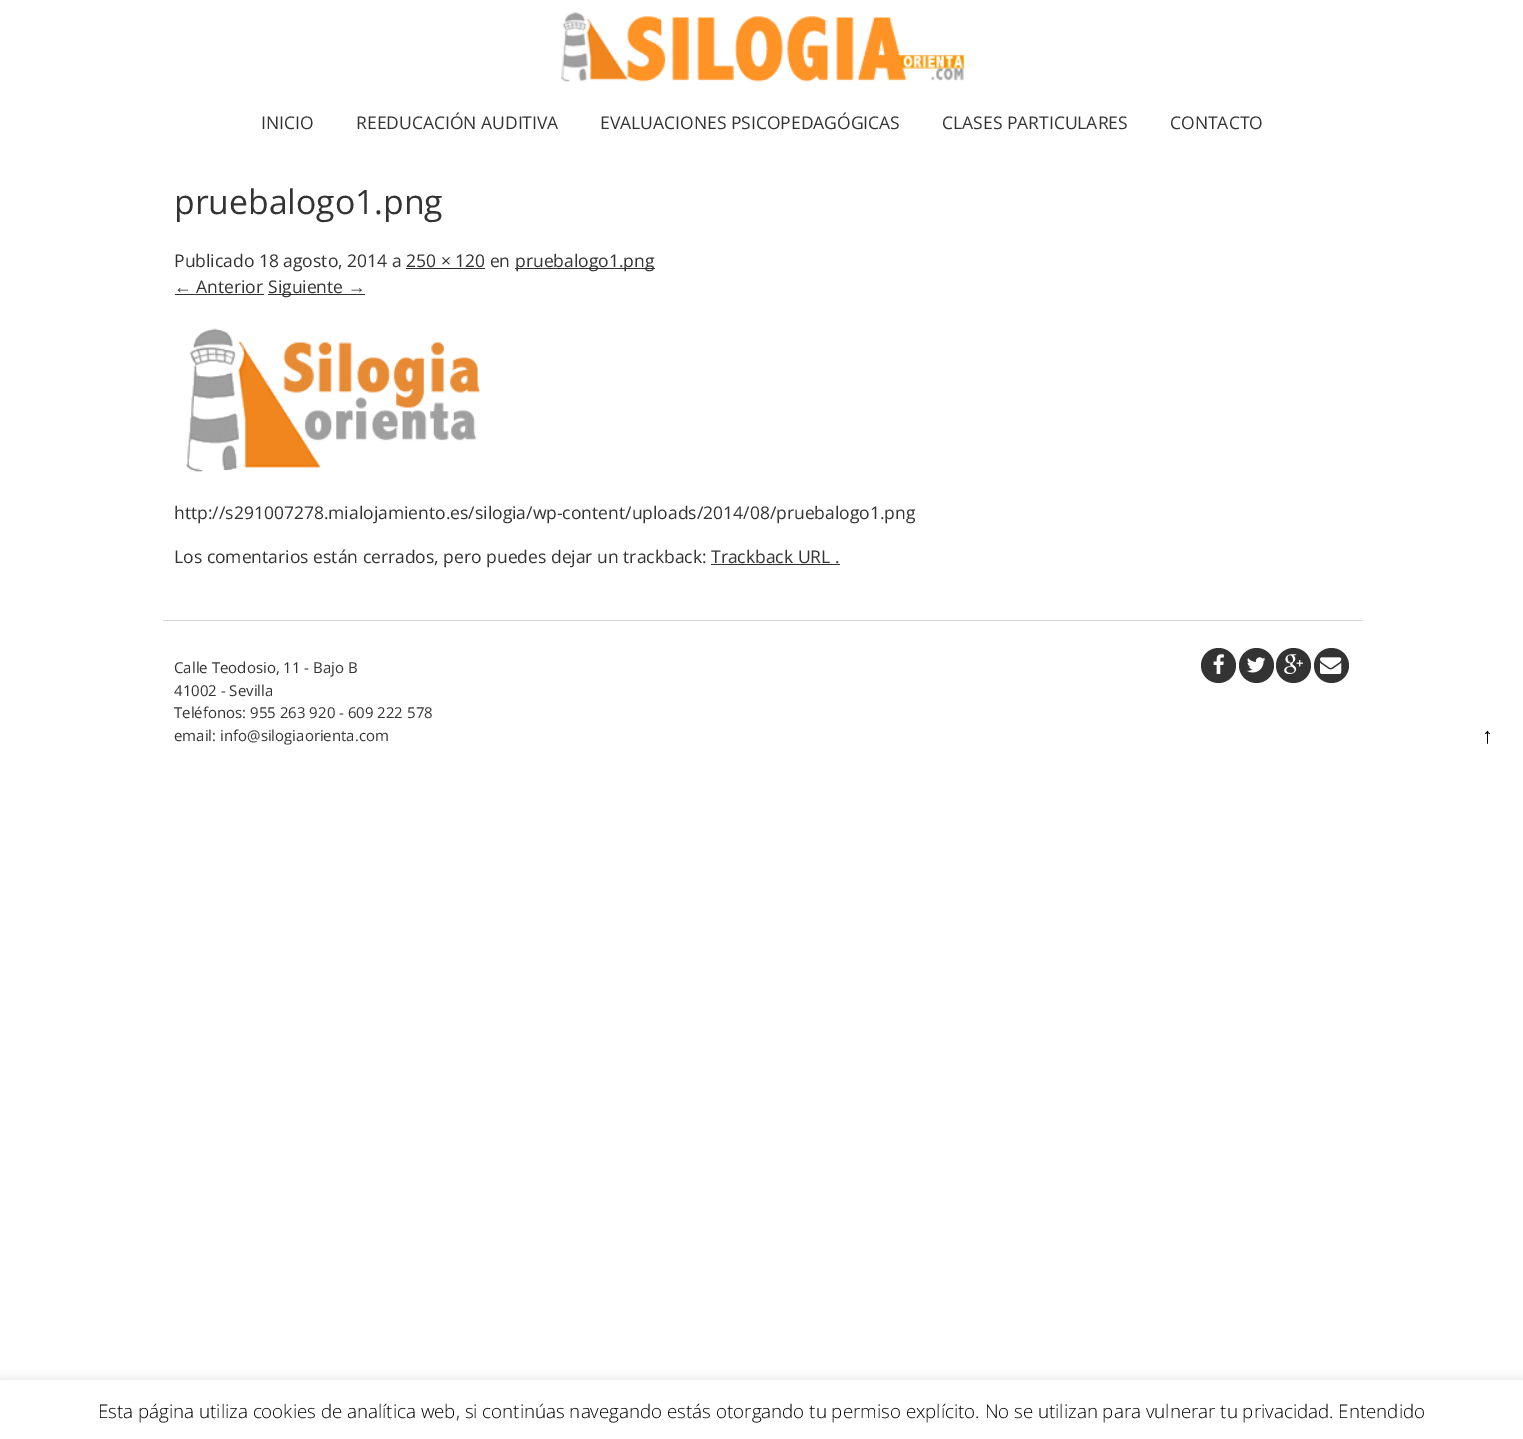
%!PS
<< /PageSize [1523 1439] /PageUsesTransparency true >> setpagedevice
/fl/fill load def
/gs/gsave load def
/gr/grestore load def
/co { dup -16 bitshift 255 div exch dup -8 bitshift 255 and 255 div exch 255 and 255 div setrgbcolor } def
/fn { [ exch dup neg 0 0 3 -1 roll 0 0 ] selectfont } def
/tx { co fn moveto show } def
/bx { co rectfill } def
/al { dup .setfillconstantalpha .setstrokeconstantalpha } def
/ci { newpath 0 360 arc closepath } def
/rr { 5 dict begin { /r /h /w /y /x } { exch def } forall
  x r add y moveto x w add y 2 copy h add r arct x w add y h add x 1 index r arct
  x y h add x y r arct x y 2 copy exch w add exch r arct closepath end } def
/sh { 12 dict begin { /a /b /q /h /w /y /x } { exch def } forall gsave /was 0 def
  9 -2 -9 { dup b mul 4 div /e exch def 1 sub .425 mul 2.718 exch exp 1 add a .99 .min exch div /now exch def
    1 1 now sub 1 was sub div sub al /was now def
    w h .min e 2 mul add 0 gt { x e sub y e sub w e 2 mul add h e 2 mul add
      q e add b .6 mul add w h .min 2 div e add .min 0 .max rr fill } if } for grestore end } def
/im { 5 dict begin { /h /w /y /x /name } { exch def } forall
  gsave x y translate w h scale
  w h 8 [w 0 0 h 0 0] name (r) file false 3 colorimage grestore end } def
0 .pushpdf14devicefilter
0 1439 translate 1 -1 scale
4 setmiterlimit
0 0 1523 1439 16#FFFFFF bx
(media/1.raw) 561 12 403 70 im
515 268 140 1 16#333333 bx
406 268 79 1 16#333333 bx
175 294 89 1 16#333333 bx
268 294 97 1 16#333333 bx
(media/2.raw) 186 328 295 144 im
711 564 129 1 16#333333 bx
163 620 1200 1 16#D6D6D6 bx
16#333333 co
1218.5 665.5 17.5 ci fl
(media/3.raw) 1213 654 11 20 im
1256.5 665.5 17.5 ci fl
(media/4.raw) 1247 657 19 16 im
1293.5 665.5 17.5 ci fl
(media/5.raw) 1284 654 19 20 im
1331.5 665.5 17.5 ci fl
(media/6.raw) 1320 657 22 17 im
gs
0 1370 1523 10 rectclip
16#ACABAB co
0 1379 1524 60 0 6 .3 sh
gr
(INICIO) 261 129 /OpenSans-Regular 17.5 16#333333 tx
(REEDUCACIÓN AUDITIVA) 356 129 /OpenSans-Regular 17.5 16#333333 tx
(EVALUACIONES PSICOPEDAGÓGICAS) 600 129 /OpenSans-Regular 17.5 16#333333 tx
(CLASES PARTICULARES) 942 129 /OpenSans-Regular 17.5 16#333333 tx
(CONTACTO) 1170 129 /OpenSans-Regular 17.5 16#333333 tx
(pruebalogo1.png) 174 214 /OpenSans-Regular 33.75 16#333333 tx
(Publicado 18 agosto, 2014 a 250 × 120 en) 174 267 /OpenSans-Regular 17.5 16#333333 tx
(pruebalogo1.png) 515 267 /OpenSans-Regular 17.5 16#333333 tx
(←) 174 293 /LiberationSans-Regular 17.5 16#333333 tx
(Anterior) 196 293 /OpenSans-Regular 17.5 16#333333 tx
(Siguiente) 268 293 /OpenSans-Regular 17.5 16#333333 tx
(→) 348 293 /LiberationSans-Regular 17.5 16#333333 tx
(http://s291007278.mialojamiento.es/silogia/wp-content/uploads/2014/08/pruebalogo1.png) 174 519 /OpenSans-Regular 17.5 16#333333 tx
(Los comentarios están cerrados, pero puedes dejar un trackback: Trackback URL .) 174 563 /OpenSans-Regular 17.5 16#333333 tx
(Calle Teodosio, 11 - Bajo B) 174 673 /OpenSans-Regular 15 16#333333 tx
(41002 - Sevilla) 174 696 /OpenSans-Regular 15 16#333333 tx
(Teléfonos: 955 263 920 - 609 222 578) 174 718 /OpenSans-Regular 15 16#333333 tx
(email: info@silogiaorienta.com) 174 741 /OpenSans-Regular 15 16#333333 tx
(↑) 1482 743 /LiberationSans-Regular 22 16#010101 tx
(Esta página utiliza cookies de analítica web, si continúas navegando estás otorgando tu permiso explícito. No se utilizan para vulnerar tu privacidad. Entendido) 98 1418 /OpenSans-Light 18.75 16#010101 tx
.poppdf14devicefilter showpage
